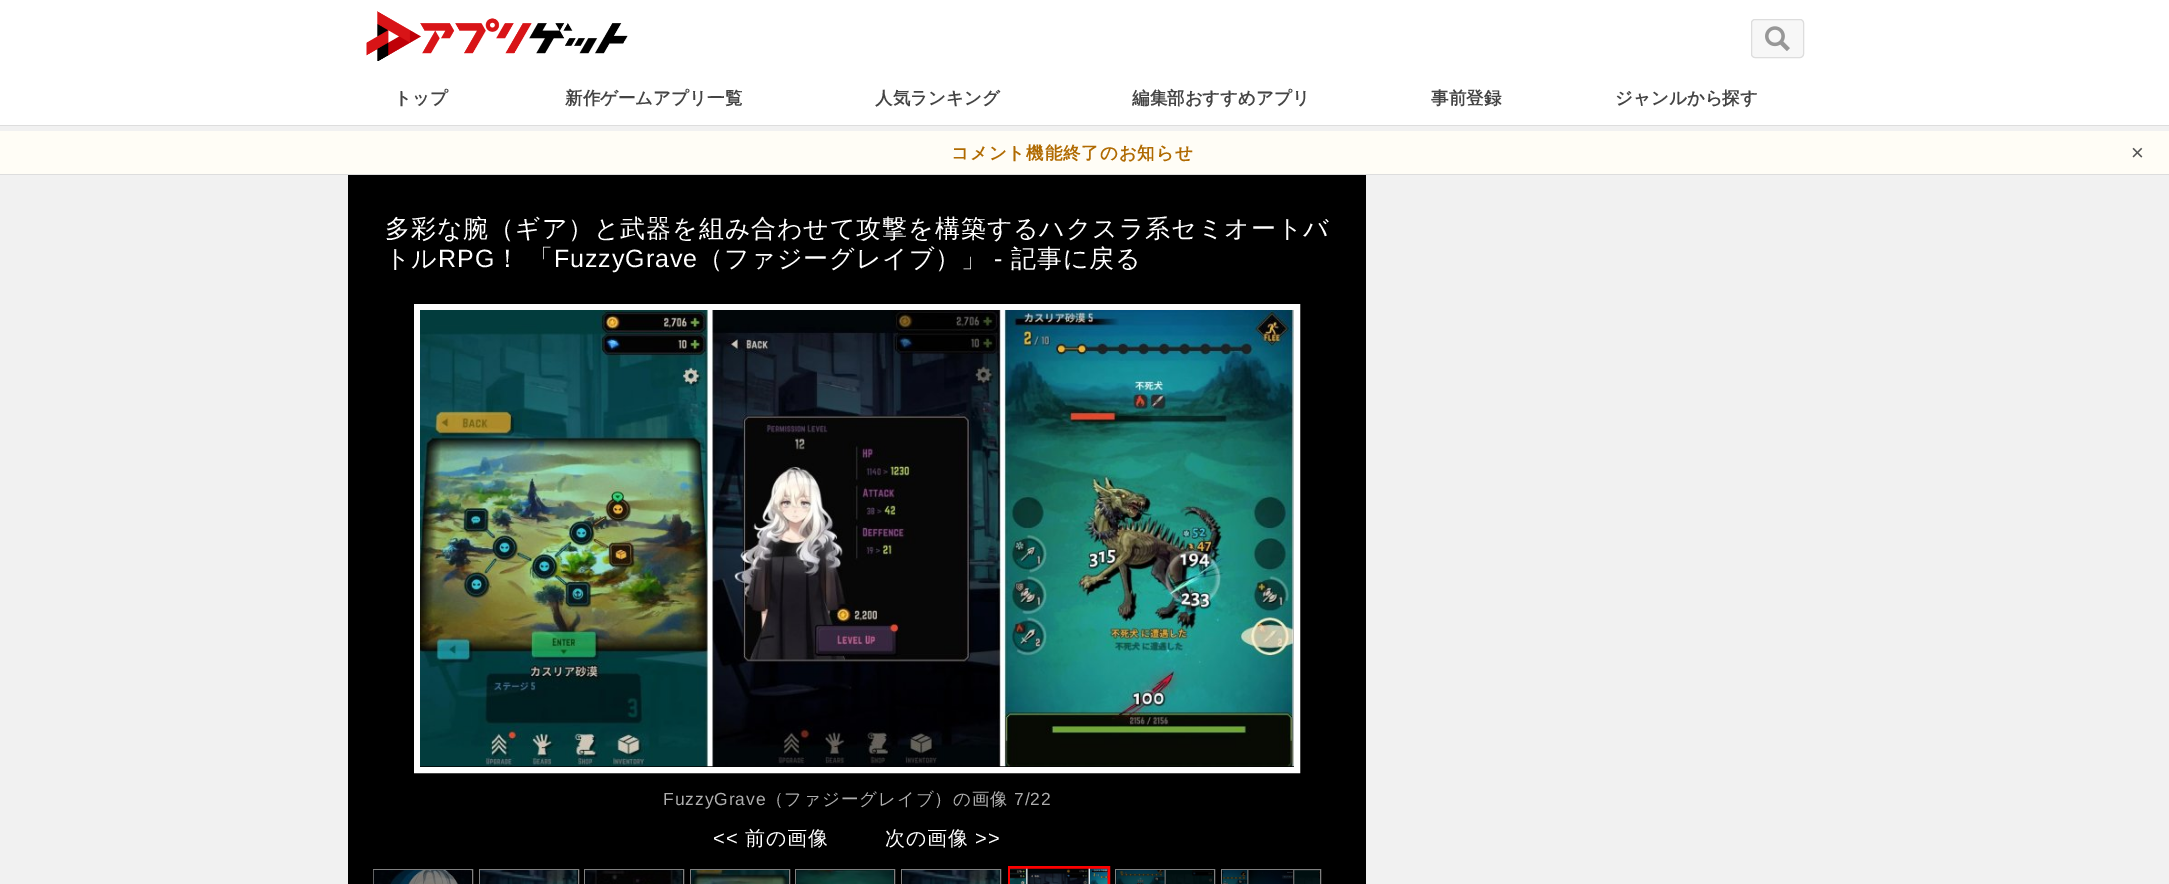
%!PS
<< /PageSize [2169 884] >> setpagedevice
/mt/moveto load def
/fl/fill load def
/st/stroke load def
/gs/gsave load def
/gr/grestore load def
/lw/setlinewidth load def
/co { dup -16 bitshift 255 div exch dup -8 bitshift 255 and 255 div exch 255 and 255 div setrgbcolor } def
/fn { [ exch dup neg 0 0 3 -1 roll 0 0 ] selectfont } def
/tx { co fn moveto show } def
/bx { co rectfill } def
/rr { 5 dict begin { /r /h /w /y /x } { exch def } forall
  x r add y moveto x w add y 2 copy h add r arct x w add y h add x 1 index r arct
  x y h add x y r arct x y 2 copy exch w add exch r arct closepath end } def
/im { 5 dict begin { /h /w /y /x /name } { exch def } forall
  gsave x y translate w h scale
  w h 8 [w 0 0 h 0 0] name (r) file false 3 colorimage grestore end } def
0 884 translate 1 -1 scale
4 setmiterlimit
0 0 2169 884 16#F1F1F1 bx
0 0 2169 125 16#FFFFFF bx
0 125 2169 1 16#DDDDDD bx
(media/1.raw) 366 11 262 50 im
16#F7F7F7 co
1751.5 19.5 52 38 3.5 rr gs fl gr
16#DDDDDD co
st
(media/2.raw) 1765 26 25 25 im
0 131 2169 43 16#FFFDF6 bx
0 174 2169 1 16#DDDDDD bx
348 175 1018 709 16#000000 bx
16#FFFFFF co
6 lw
417 307 880 463 rectstroke
(media/3.raw) 420 310 874 457 im
16#FF0000 co
3 lw
1009.5 867.5 99 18 rectstroke
16#808080 co
1 lw
373.5 869.5 99 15 rectstroke
479.5 869.5 99 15 rectstroke
584.5 869.5 99 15 rectstroke
690.5 869.5 99 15 rectstroke
795.5 869.5 99 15 rectstroke
901.5 869.5 99 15 rectstroke
(media/4.raw) 1010 868 98 16 im
1115.5 869.5 99 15 rectstroke
1221.5 869.5 99 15 rectstroke
(media/5.raw) 373 870 98 14 im
(media/6.raw) 480 870 98 14 im
(media/7.raw) 585 870 98 14 im
(media/8.raw) 691 870 98 14 im
(media/9.raw) 796 870 98 14 im
(media/10.raw) 902 870 98 14 im
(media/11.raw) 1116 870 98 14 im
(media/12.raw) 1222 870 98 14 im
(トップ) 394 104 /WenQuanYiZenHei-Bold 17.5 16#444444 tx
(新作ゲームアプリ一覧) 565 104 /WenQuanYiZenHei-Bold 17.5 16#444444 tx
(人気ランキング) 875 104 /WenQuanYiZenHei-Bold 17.5 16#444444 tx
(編集部おすすめアプリ) 1132 104 /WenQuanYiZenHei-Bold 17.5 16#444444 tx
(事前登録) 1431 104 /WenQuanYiZenHei-Bold 17.5 16#444444 tx
(ジャンルから探す) 1615 104 /WenQuanYiZenHei-Bold 17.5 16#444444 tx
16#B06A00 co
951 159 mt .9 0 (コメント機能終了のお知らせ) ashow
/LiberationSans-Regular 22 fn
16#555555 co
2131 160 mt .9 0 (×) ashow
/WenQuanYiZenHei-Medium 25 fn
16#FFFFFF co
385 237 mt .9 0 (多彩な腕（ギア）と武器を組み合わせて攻撃を構築するハクスラ系セミオートバ) ashow
385 267 mt .9 0 (トル) ashow
/LiberationSans-Regular 25 fn
438 267 mt .9 0 (RPG) ashow
/WenQuanYiZenHei-Medium 25 fn
495 267 mt .9 0 (！) ashow
528 267 mt .9 0 (「) ashow
/LiberationSans-Regular 25 fn
554 267 mt .9 0 (FuzzyGrave) ashow
/WenQuanYiZenHei-Medium 25 fn
698 267 mt .9 0 (（ファジーグレイブ）」) ashow
/LiberationSans-Regular 25 fn
994 267 mt .9 0 (-) ashow
/WenQuanYiZenHei-Medium 25 fn
1011 267 mt .9 0 (記事に戻る) ashow
/LiberationSans-Regular 17.5 fn
16#AEAEAE co
663 805 mt .9 0 (FuzzyGrave) ashow
/WenQuanYiZenHei-Medium 17.5 fn
766 805 mt .9 0 (（ファジーグレイブ）の画像) ashow
/LiberationSans-Regular 17.5 fn
1014 805 mt .9 0 (7/22) ashow
/LiberationSans-Regular 20 fn
16#FFFFFF co
713 845 mt .9 0 (<<) ashow
/WenQuanYiZenHei-Medium 20 fn
745 845 mt .9 0 (前の画像) ashow
885 845 mt .9 0 (次の画像) ashow
/LiberationSans-Regular 20 fn
975 845 mt .9 0 (>>) ashow
showpage
